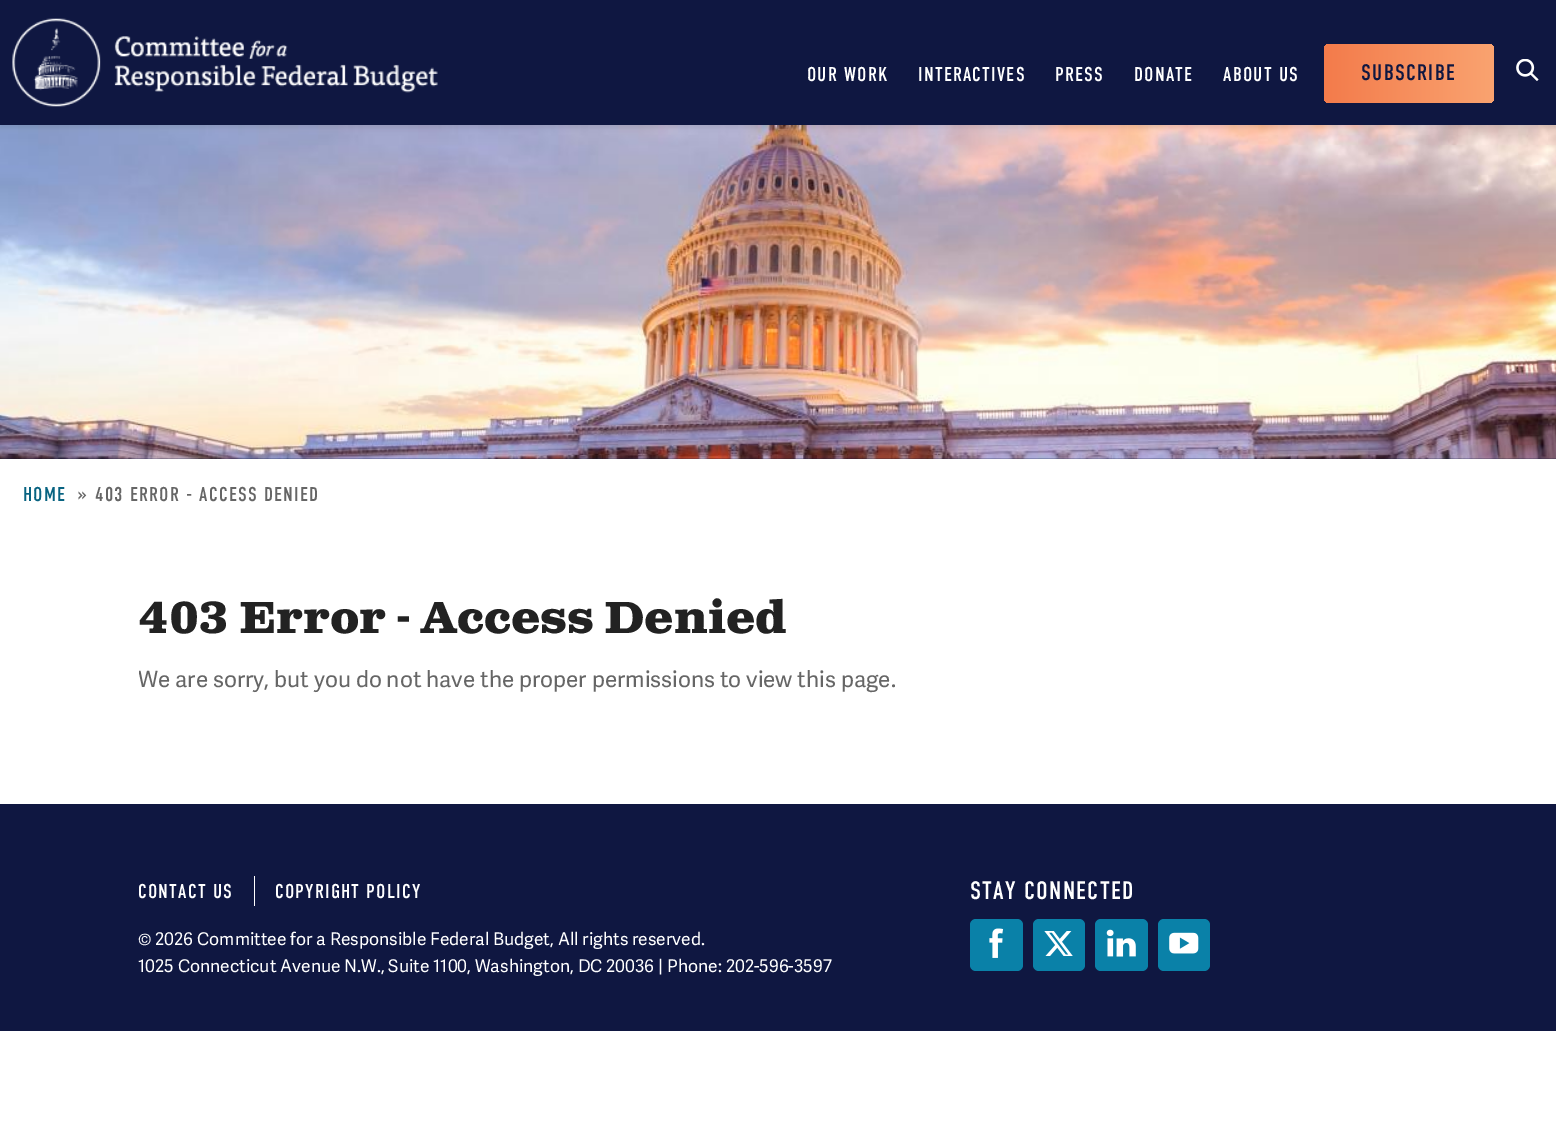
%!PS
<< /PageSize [1556 1134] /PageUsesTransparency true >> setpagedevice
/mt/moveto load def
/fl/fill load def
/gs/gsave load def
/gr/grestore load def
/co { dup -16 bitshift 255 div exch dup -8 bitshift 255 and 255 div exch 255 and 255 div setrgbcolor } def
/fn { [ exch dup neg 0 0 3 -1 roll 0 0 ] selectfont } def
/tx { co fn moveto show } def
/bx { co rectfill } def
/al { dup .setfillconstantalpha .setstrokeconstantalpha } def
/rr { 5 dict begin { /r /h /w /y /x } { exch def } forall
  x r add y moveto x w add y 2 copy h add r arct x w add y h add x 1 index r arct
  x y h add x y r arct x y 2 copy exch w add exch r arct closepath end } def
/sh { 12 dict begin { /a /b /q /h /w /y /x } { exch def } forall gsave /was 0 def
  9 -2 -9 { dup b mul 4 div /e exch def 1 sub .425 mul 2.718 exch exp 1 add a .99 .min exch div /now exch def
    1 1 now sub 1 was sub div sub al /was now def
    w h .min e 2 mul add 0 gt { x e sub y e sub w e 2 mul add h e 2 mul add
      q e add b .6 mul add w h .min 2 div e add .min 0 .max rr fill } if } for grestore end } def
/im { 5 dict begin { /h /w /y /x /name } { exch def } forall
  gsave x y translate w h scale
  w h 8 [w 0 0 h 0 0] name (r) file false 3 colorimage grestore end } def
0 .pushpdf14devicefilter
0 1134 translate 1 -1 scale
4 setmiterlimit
0 0 1556 1134 16#FFFFFF bx
(media/3.raw) 0 125 1556 334 im
16#222222 co
0 3 1556 125 0 2 .1 sh
0 0 1556 125 16#0F1741 bx
(media/1.raw) 12 18 426 89 im
gs 1324 44 170 59 6 rr clip newpath
<< /ShadingType 2 /ColorSpace /DeviceRGB /Coords [1324 73 1494 73] /Extend [true true] /Function << /FunctionType 2 /Domain [0 1] /C0 [.953 .482 .294] /C1 [.98 .639 .439] /N 1 >> >> shfill gr
(media/2.raw) 1516 59 23 22 im
0 804 1556 227 16#0F1741 bx
254 876 1 30 16#FFFFFF bx
16#0A81A8 co
970 919 53 52 6 rr fl
(media/4.raw) 989 928 15 30 im
1033 919 52 52 6 rr fl
(media/5.raw) 1044 931 29 25 im
1095 919 53 52 6 rr fl
(media/6.raw) 1106 929 30 28 im
1158 919 52 52 6 rr fl
(media/7.raw) 1169 932 30 22 im
/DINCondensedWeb-Regular 20 fn
16#FFFFFF co
807 81 mt 1.25 0 (OUR WORK) ashow
918 81 mt 1.25 0 (INTERACTIVES) ashow
1055 81 mt 1.25 0 (PRESS) ashow
1134 81 mt 1.25 0 (DONATE) ashow
1223 81 mt 1.25 0 (ABOUT US) ashow
/DINCondensedWeb-Regular 22.5 fn
16#0F1741 co
1361 80 mt 1.25 0 (SUBSCRIBE) ashow
/DINCondensedWeb-Regular 20 fn
16#086381 co
23 501 mt 1.25 0 (HOME) ashow
16#666666 co
78 501 mt 1.25 0 (») ashow
95 501 mt 1.25 0 (403 ERROR - ACCESS DENIED) ashow
(403 Error - Access Denied) 138 633 /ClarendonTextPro-Bold 45 16#222222 tx
gs
139 661 1280 68 rectclip
(We are sorry, but you do not have the proper permissions to view this page.) 138 687 /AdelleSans-Regular 22.5 16#666666 tx
gr
/DINCondensedWeb-Regular 20 fn
16#FFFFFF co
138 898 mt 1.25 0 (CONTACT US) ashow
275 898 mt 1.25 0 (COPYRIGHT POLICY) ashow
(© 2026 Committee for a Responsible Federal Budget, All rights reserved.) 138 945 /AdelleSans-Regular 17.5 16#FFFFFF tx
(1025 Connecticut Avenue N.W., Suite 1100, Washington, DC 20036 | Phone: 202-596-3597) 138 972 /AdelleSans-Regular 17.5 16#FFFFFF tx
/DINCondensedWeb-Regular 25.25 fn
970 899 mt 1.25 0 (STAY CONNECTED) ashow
.poppdf14devicefilter showpage
